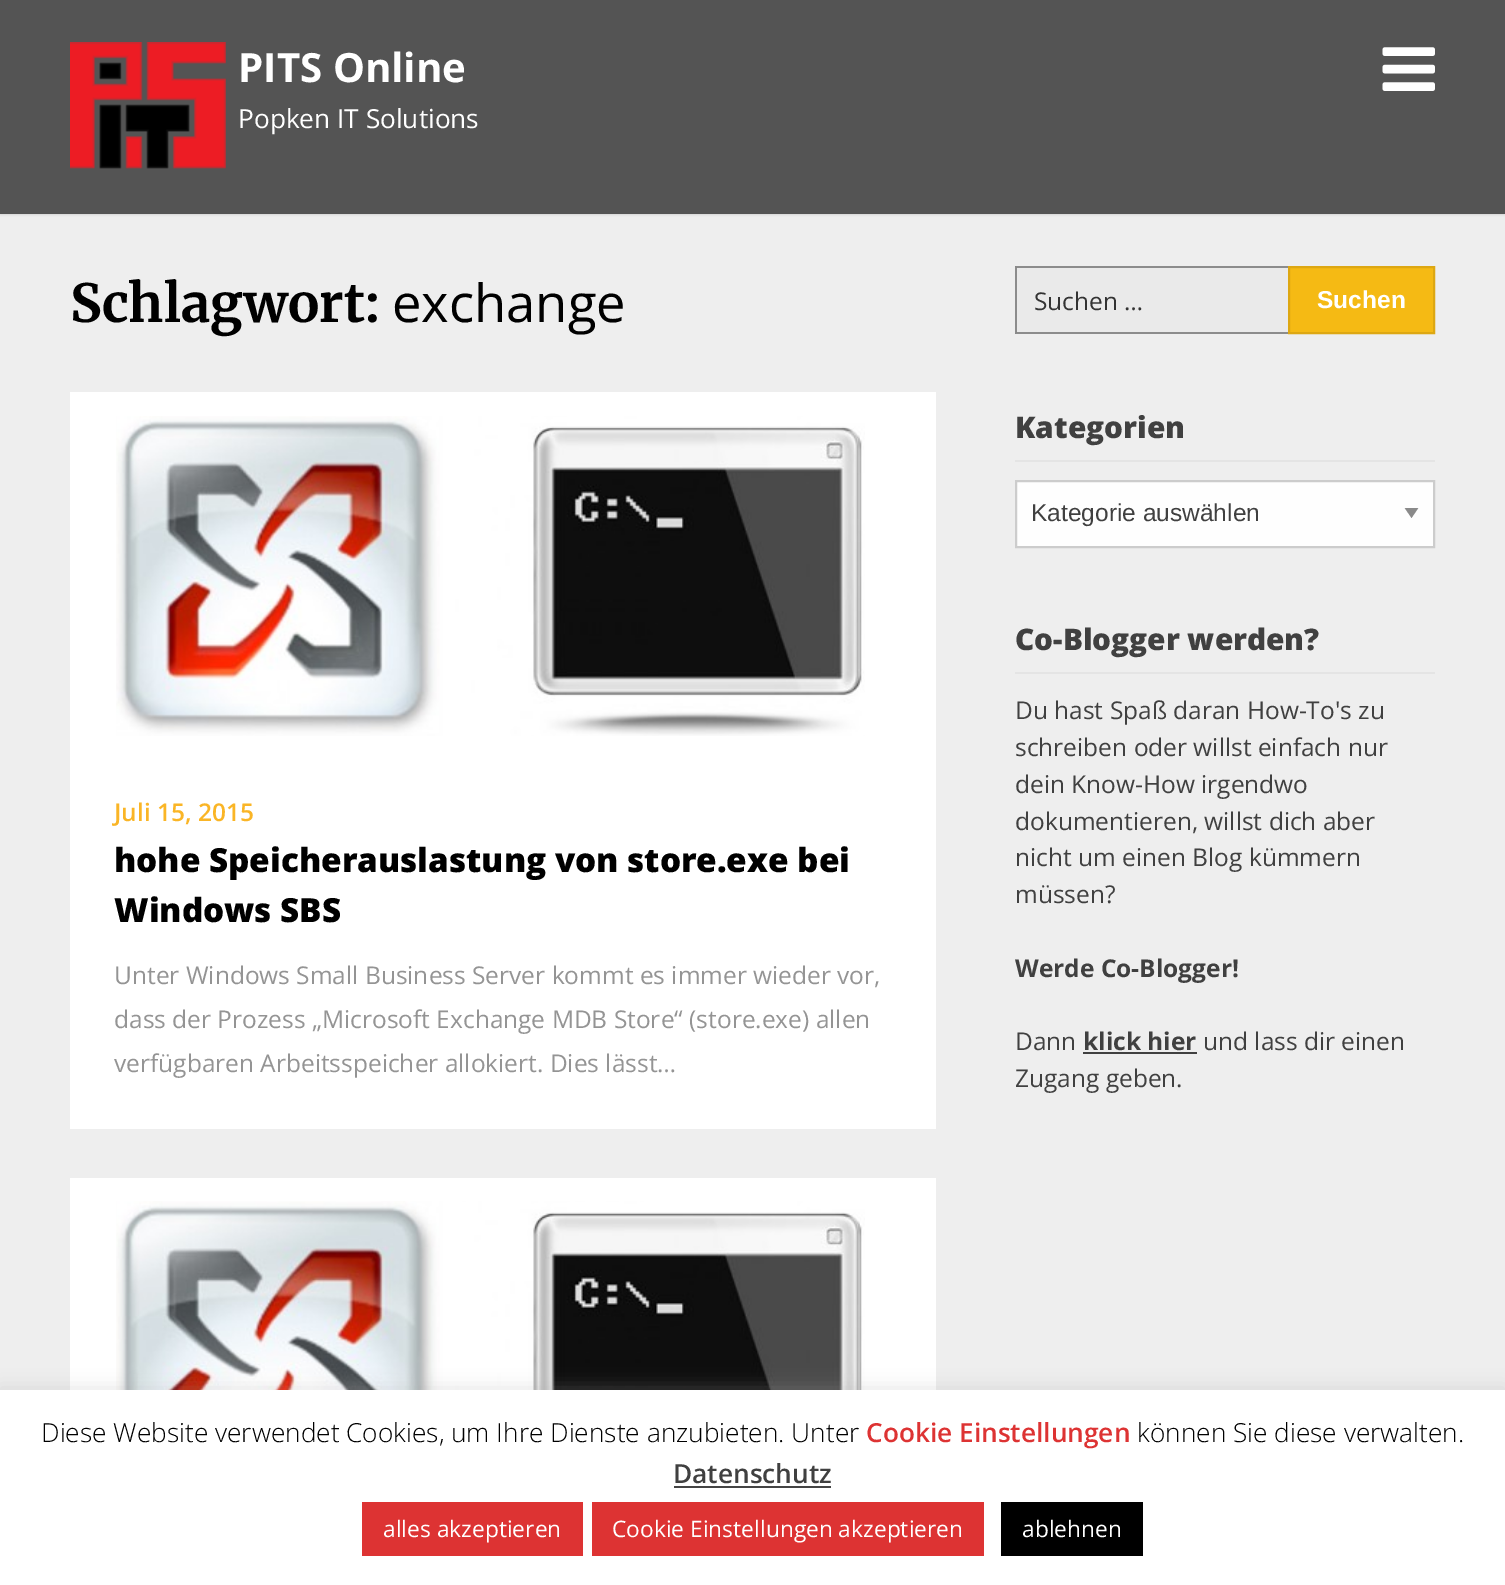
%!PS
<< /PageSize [1505 1585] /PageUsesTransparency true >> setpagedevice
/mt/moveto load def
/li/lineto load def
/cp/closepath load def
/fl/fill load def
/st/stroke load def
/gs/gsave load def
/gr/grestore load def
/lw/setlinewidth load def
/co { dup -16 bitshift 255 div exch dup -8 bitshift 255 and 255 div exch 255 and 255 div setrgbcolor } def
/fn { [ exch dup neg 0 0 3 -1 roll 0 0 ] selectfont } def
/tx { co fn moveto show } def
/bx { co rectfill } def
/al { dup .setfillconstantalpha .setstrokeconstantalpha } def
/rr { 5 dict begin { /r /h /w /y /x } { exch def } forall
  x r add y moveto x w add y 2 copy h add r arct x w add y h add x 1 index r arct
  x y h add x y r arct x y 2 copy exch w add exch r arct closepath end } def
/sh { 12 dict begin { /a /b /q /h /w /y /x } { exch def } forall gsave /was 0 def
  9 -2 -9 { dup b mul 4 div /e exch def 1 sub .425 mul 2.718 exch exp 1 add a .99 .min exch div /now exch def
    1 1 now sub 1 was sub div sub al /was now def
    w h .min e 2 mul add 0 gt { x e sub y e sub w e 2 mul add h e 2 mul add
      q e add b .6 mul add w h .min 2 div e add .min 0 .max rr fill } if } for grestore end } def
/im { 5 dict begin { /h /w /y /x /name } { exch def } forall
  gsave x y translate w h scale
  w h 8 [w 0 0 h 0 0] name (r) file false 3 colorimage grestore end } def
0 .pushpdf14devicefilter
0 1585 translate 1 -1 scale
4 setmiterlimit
0 0 1505 1585 16#EEEEEE bx
16#000000 co
0 2 1505 213 0 1 .1 sh
0 0 1505 214 16#545454 bx
(media/1.raw) 70 42 156 127 im
(media/2.raw) 1382 47 53 44 im
70 392 866 737 16#FFFFFF bx
(media/3.raw) 116 416 749 320 im
70 1178 866 212 16#FFFFFF bx
(media/4.raw) 116 1201 749 189 im
1015 266 273 68 16#EAEAEA bx
16#8C8C8C co
1015 266 mt 1288 266 li 1288 268 li 1017 268 li cp fl
1288 334 mt 1015 334 li 1017 332 li 1288 332 li cp fl
0.4 al
16#000000 co
1015 334 mt 1015 266 li 1017 268 li 1017 332 li cp fl
1 al
16#F5BA14 co
1289 267 mt 1434 267 li 1434 333 li 1289 333 li cp gs fl gr
16#DDA712 co
2 lw
st
1015 460 420 2 16#E4E4E4 bx
1017 482 416 64 16#FEFEFE bx
gs
1404 508 15 10 rectclip
16#8A8A8A co
1404.5 507.5 mt 1418.5 507.5 li 1411.5 518 li cp fl
gr
16#CCCCCC co
1016 481 418 66 rectstroke
1015 672 420 2 16#E4E4E4 bx
1083 1052 114 2 16#404040 bx
16#ACABAB co
0 1388 1505 196 0 9 .3 sh
0 1390 1505 195 16#FFFFFF bx
674 1486 157 2 16#444444 bx
362 1502 221 54 16#DD3333 bx
592 1502 392 54 16#DD3333 bx
1001 1502 142 54 16#000000 bx
(PITS Online) 238 82 /OpenSans-Bold 40.25 16#FFFFFF tx
(Popken IT Solutions) 238 128 /OpenSans-Regular 26.25 16#FFFFFF tx
(Schlagwort:) 70 322 /Merriweather-Bold 52.5 16#000000 tx
(exchange) 392 322 /OpenSans-Regular 52.5 16#000000 tx
(Juli 15, 2015) 114 821 /OpenSans-SemiBold 24.5 16#FAB526 tx
(hohe Speicherauslastung von store.exe bei) 114 872 /OpenSans-ExtraBold 33.25 16#000000 tx
(Windows SBS) 114 922 /OpenSans-ExtraBold 33.25 16#000000 tx
(Unter Windows Small Business Server kommt es immer wieder vor,) 114 984 /OpenSans-Regular 24.5 16#949494 tx
(dass der Prozess „Microsoft Exchange MDB Store“ \(store.exe\) allen) 114 1028 /OpenSans-Regular 24.5 16#949494 tx
(verfügbaren Arbeitsspeicher allokiert. Dies lässt…) 114 1072 /OpenSans-Regular 24.5 16#949494 tx
(Suchen …) 1034 310 /OpenSans-Regular 24.5 16#333333 tx
(Suchen) 1317 308 /LiberationSans-Bold 24.5 16#FFFFFF tx
(Kategorien) 1015 438 /OpenSans-ExtraBold 29.75 16#404040 tx
(Kategorie auswählen) 1031 521 /LiberationSans-Regular 24.5 16#404040 tx
(Co-Blogger werden?) 1015 650 /OpenSans-ExtraBold 29.75 16#404040 tx
(Du hast Spaß daran How-To's zu) 1015 719 /OpenSans-Regular 24.5 16#404040 tx
(schreiben oder willst einfach nur) 1015 756 /OpenSans-Regular 24.5 16#404040 tx
(dein Know-How irgendwo) 1015 793 /OpenSans-Regular 24.5 16#404040 tx
(dokumentieren, willst dich aber) 1015 830 /OpenSans-Regular 24.5 16#404040 tx
(nicht um einen Blog kümmern) 1015 866 /OpenSans-Regular 24.5 16#404040 tx
(müssen?) 1015 903 /OpenSans-Regular 24.5 16#404040 tx
(Werde Co-Blogger!) 1015 977 /OpenSans-Bold 24.5 16#404040 tx
(Dann) 1015 1050 /OpenSans-Regular 24.5 16#404040 tx
(klick hier) 1083 1050 /OpenSans-Bold 24.5 16#404040 tx
(und lass dir einen) 1203 1050 /OpenSans-Regular 24.5 16#404040 tx
(Zugang geben.) 1015 1087 /OpenSans-Regular 24.5 16#404040 tx
(Diese Website verwendet Cookies, um Ihre Dienste anzubieten. Unter) 41 1442 /OpenSans-Light 26.25 16#000000 tx
(Cookie Einstellungen) 866 1442 /OpenSans-SemiBold 26.25 16#DD3333 tx
(können Sie diese verwalten.) 1137 1442 /OpenSans-Light 26.25 16#000000 tx
(Datenschutz) 673 1483 /OpenSans-SemiBold 26.25 16#404040 tx
(alles akzeptieren) 383 1537 /OpenSans-Regular 22.75 16#FFFFFF tx
(Cookie Einstellungen akzeptieren) 612 1537 /OpenSans-Regular 22.75 16#FFFFFF tx
(ablehnen) 1022 1537 /OpenSans-Regular 22.75 16#FFFFFF tx
.poppdf14devicefilter showpage
